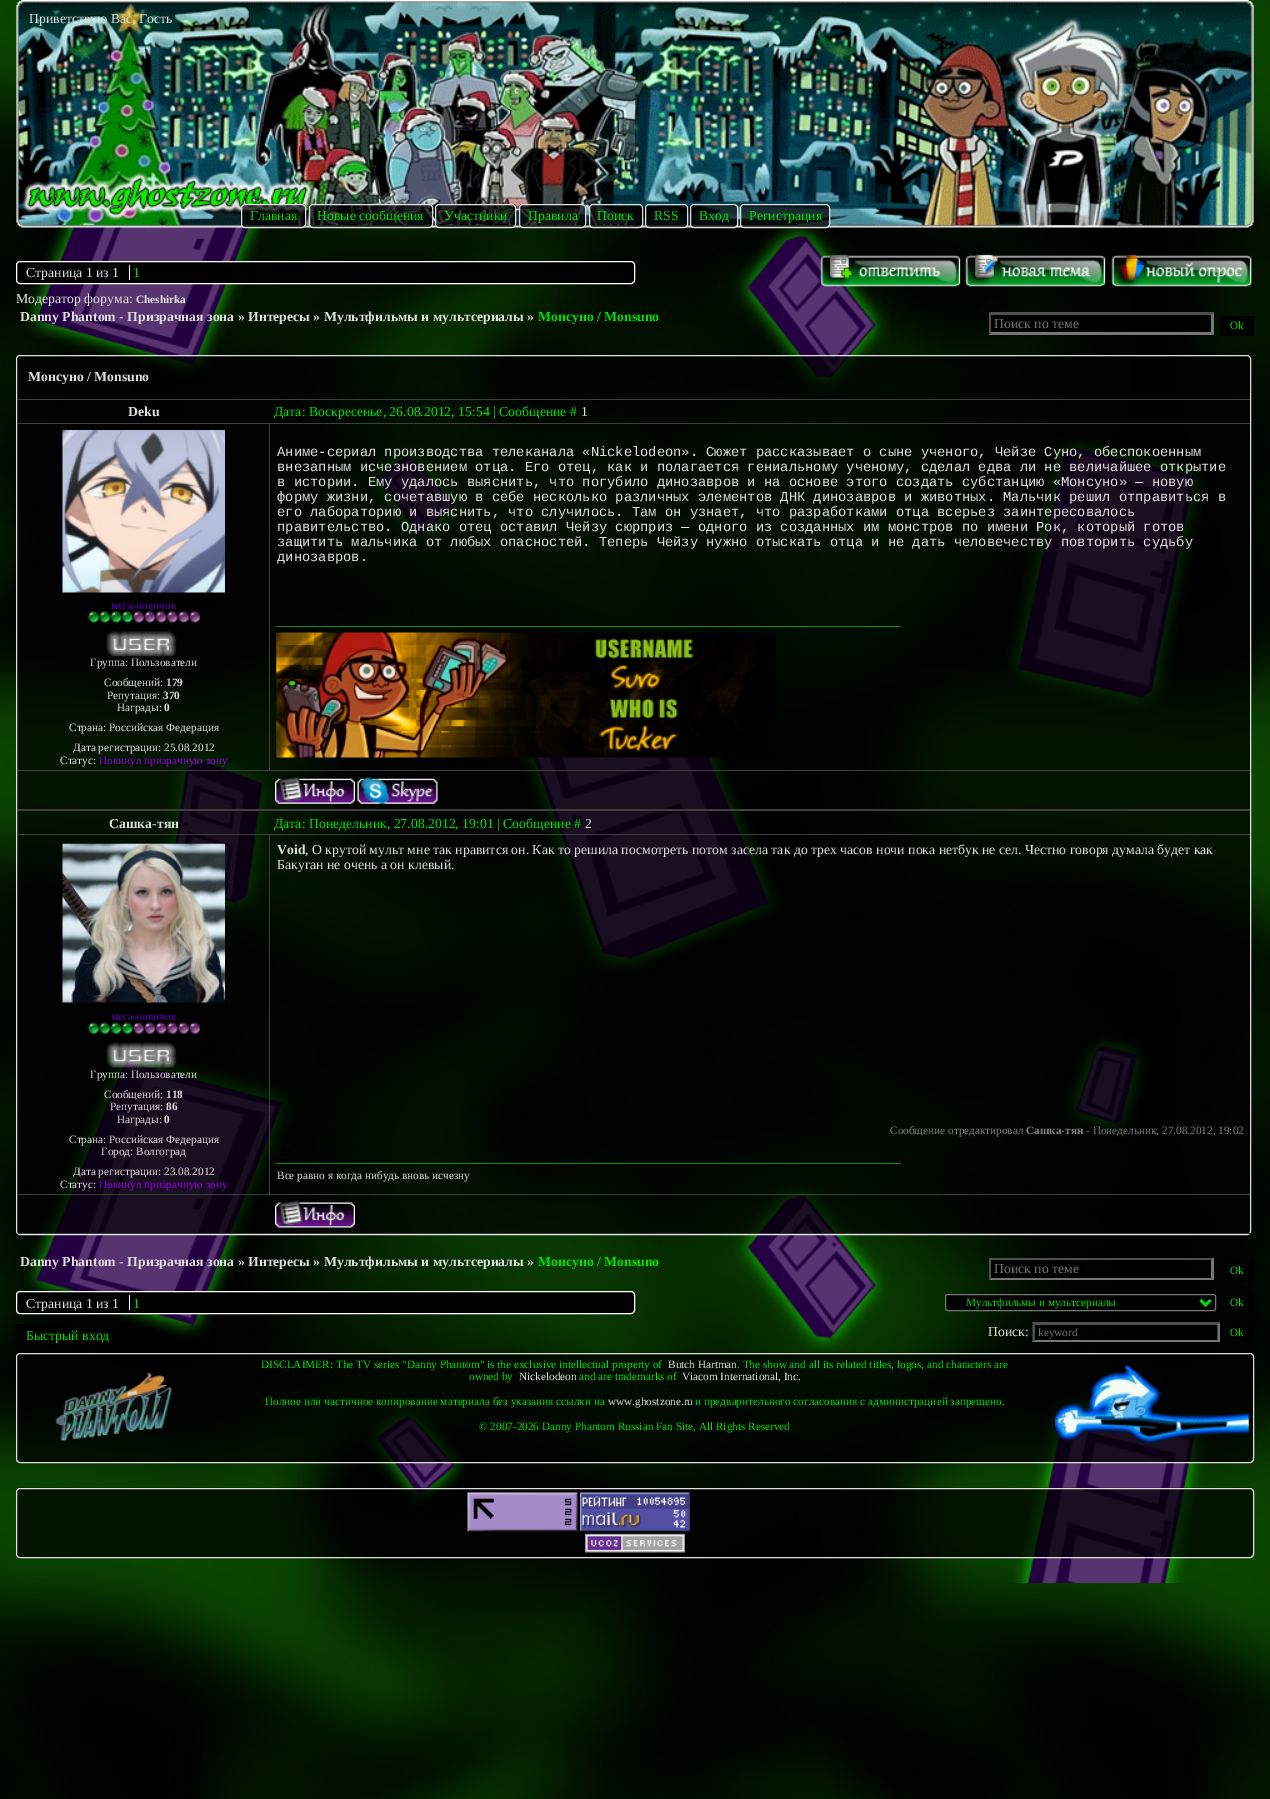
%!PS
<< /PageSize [1270 1799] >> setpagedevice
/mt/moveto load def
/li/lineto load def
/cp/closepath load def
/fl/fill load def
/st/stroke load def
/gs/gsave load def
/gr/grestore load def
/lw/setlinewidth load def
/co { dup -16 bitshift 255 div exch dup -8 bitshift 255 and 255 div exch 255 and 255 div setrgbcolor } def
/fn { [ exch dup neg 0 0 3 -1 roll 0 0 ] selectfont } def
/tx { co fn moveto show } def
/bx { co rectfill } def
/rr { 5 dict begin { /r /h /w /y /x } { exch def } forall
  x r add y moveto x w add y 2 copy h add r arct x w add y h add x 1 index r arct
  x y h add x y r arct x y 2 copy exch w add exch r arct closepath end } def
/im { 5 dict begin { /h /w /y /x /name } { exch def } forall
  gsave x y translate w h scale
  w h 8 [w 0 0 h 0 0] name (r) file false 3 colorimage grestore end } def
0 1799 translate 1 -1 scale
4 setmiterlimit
0 0 1270 1799 16#FFFFFF bx
(media/1.raw) 0 0 1270 1799 im
(media/2.raw) 24 227 1184 1356 im
(media/3.raw) 16 0 1238 228 im
(media/4.raw) 241 204 66 24 im
16#DFDFDF co
241.5 204.5 64 23 3.5 rr st
(media/5.raw) 308 204 125 24 im
309.5 204.5 123 23 3.5 rr st
(media/6.raw) 435 204 82 24 im
435.5 204.5 80 23 3.5 rr st
(media/7.raw) 518 204 69 24 im
519.5 204.5 66 23 3.5 rr st
(media/8.raw) 588 204 55 24 im
589.5 204.5 53 23 3.5 rr st
(media/9.raw) 645 204 43 24 im
645.5 204.5 42 23 3.5 rr st
(media/10.raw) 690 204 48 24 im
690.5 204.5 47 23 3.5 rr st
(media/11.raw) 740 204 90 24 im
740.5 204.5 89 23 3.5 rr st
16#000000 co
16.5 261.5 618 22 3.5 rr gs fl gr
16#FFFFFF co
st
129 265 1 15 16#FFFFFF bx
(media/12.raw) 820 254 141 33 im
(media/13.raw) 965 254 141 33 im
(media/14.raw) 1111 254 141 33 im
989 313 225 22 16#000000 bx
16#4F4F4F co
989 312 mt 1214 312 li 1211 315 li 991 315 li cp fl
16#767676 co
1214 312.5 mt 1214 335 li 1211 332.5 li 1211 315 li cp fl
1214 335 mt 989 335 li 991 332 li 1211 332 li cp fl
16#4F4F4F co
989 335 mt 989 312.5 li 991 315 li 991 332.5 li cp fl
1220 316 34 20 16#000000 bx
(media/15.raw) 16 355 1235 880 im
16#DFDFDF co
16.5 355.5 1234 879 3.5 rr st
18 399 1232 1 16#3F3F3F bx
18 423 1232 1 16#3F3F3F bx
269 424 1 346 16#3F3F3F bx
(media/16.raw) 62 430 163 163 im
(media/17.raw) 87 611 113 12 im
(media/18.raw) 106 631 71 26 im
276 626 625 1 16#008F00 bx
(media/19.raw) 276 632 500 126 im
18 770 1232 1 16#3F3F3F bx
18 809 1232 1 16#3F3F3F bx
(media/20.raw) 275 776 80 28 im
(media/21.raw) 357 777 81 27 im
18 810 1232 1 16#3F3F3F bx
18 834 1232 1 16#3F3F3F bx
269 835 1 359 16#3F3F3F bx
(media/22.raw) 62 843 163 160 im
(media/23.raw) 87 1022 113 12 im
(media/24.raw) 106 1042 71 26 im
276 1163 625 1 16#008F00 bx
18 1194 1232 1 16#3F3F3F bx
18 1233 1232 1 16#3F3F3F bx
(media/25.raw) 275 1200 80 28 im
989 1258 93 22 16#000000 bx
16#4F4F4F co
989 1258 mt 1214 1258 li 1211 1260 li 991 1260 li cp fl
16#767676 co
1214 1257.5 mt 1214 1280 li 1211 1277.5 li 1211 1260 li cp fl
1214 1280 mt 989 1280 li 991 1278 li 1211 1278 li cp fl
16#4F4F4F co
989 1280 mt 989 1257.5 li 991 1260 li 991 1277.5 li cp fl
1220 1261 34 20 16#000000 bx
16.5 1291.5 618 22 3.5 rr gs fl gr
16#FFFFFF co
st
129 1295 1 15 16#FFFFFF bx
16#000000 co
945.5 1294.5 270 16 2 rr gs fl gr
16#767676 co
st
16#00DF00 co
2.5 lw
1200.5 1300 mt 1205.5 1305 li 1210.5 1300 li st
1232 1293 22 20 16#000000 bx
16 1324 53 22 16#000000 bx
1033 1323 38 20 16#000000 bx
16#4F4F4F co
1032 1322 mt 1220 1322 li 1218 1325 li 1035 1325 li cp fl
16#767676 co
1220 1322.5 mt 1220 1342.5 li 1217.5 1340 li 1217.5 1325 li cp fl
1220 1342 mt 1032 1342 li 1035 1340 li 1218 1340 li cp fl
16#4F4F4F co
1032.5 1342.5 mt 1032.5 1322.5 li 1035 1325 li 1035 1340 li cp fl
1239 1323 15 20 16#000000 bx
(media/26.raw) 16 1352 1238 111 im
16#DFDFDF co
1 lw
16.5 1353.5 1237 109 3.5 rr st
(media/27.raw) 55 1372 117 70 im
(media/28.raw) 1055 1364 194 80 im
(media/29.raw) 16 1487 1238 71 im
16.5 1488.5 1237 69 3.5 rr st
(media/30.raw) 467 1492 111 40 im
(media/31.raw) 580 1492 110 40 im
(media/32.raw) 585 1533 100 20 im
(Приветствую Вас, Гость) 29 23 /LiberationSerif-Regular 13.75 16#DFDFDF tx
(Главная) 250 220 /LiberationSerif-Regular 13.75 16#00DF00 tx
(Новые сообщения) 317 220 /LiberationSerif-Regular 13.75 16#00DF00 tx
(Участники) 444 220 /LiberationSerif-Regular 13.75 16#00DF00 tx
(Правила) 528 220 /LiberationSerif-Regular 13.75 16#00DF00 tx
(Поиск) 597 220 /LiberationSerif-Regular 13.75 16#00DF00 tx
(RSS) 654 220 /LiberationSerif-Regular 13.75 16#00DF00 tx
(Вход) 699 220 /LiberationSerif-Regular 13.75 16#00DF00 tx
(Регистрация) 749 220 /LiberationSerif-Regular 13.75 16#00DF00 tx
(Страница 1 из 1) 26 277 /LiberationSerif-Regular 13.75 16#DFDFDF tx
(1) 133 277 /LiberationSerif-Regular 13.75 16#00DF00 tx
(Модератор форума:) 16 303 /LiberationSerif-Regular 13.75 16#DFDFDF tx
(Cheshirka) 136 303 /LiberationSerif-Bold 11.25 16#DFDFDF tx
(Danny Phantom - Призрачная зона » Интересы » Мультфильмы и мультсериалы ») 20 321 /LiberationSerif-Bold 13.75 16#DFDFDF tx
(Монсуно / Monsuno) 538 321 /LiberationSerif-Bold 13.75 16#00DF00 tx
(Поиск по теме) 994 328 /LiberationSerif-Regular 13.75 16#757575 tx
(Ok) 1230 329 /LiberationSerif-Regular 11.25 16#00DF00 tx
(Монсуно / Monsuno) 28 381 /LiberationSerif-Bold 13.75 16#DFDFDF tx
(Deku) 128 416 /LiberationSerif-Bold 13.75 16#DFDFDF tx
(Дата: Воскресенье, 26.08.2012, 15:54 | Сообщение #) 274 416 /LiberationSerif-Regular 13.75 16#00DF00 tx
(1) 581 416 /LiberationSerif-Regular 13.75 16#DFDFDF tx
(Аниме-сериал производства телеканала «Nickelodeon». Сюжет рассказывает о сыне ученого, Чейзе Суно, обеспокоенным) 277 456 /LiberationMono-Regular 13.75 16#DFDFDF tx
(внезапным исчезновением отца. Его отец, как и полагается гениальному ученому, сделал едва ли не величайшее открытие) 277 471 /LiberationMono-Regular 13.75 16#DFDFDF tx
(в истории. Ему удалось выяснить, что погубило динозавров и на основе этого создать субстанцию «Монсуно» — новую) 277 486 /LiberationMono-Regular 13.75 16#DFDFDF tx
(форму жизни, сочетавшую в себе несколько различных элементов ДНК динозавров и животных. Мальчик решил отправиться в) 277 501 /LiberationMono-Regular 13.75 16#DFDFDF tx
(его лабораторию и выяснить, что случилось. Там он узнает, что разработками отца всерьез заинтересовалось) 277 516 /LiberationMono-Regular 13.75 16#DFDFDF tx
(правительство. Однако отец оставил Чейзу сюрприз — одного из созданных им монстров по имени Рок, который готов) 277 531 /LiberationMono-Regular 13.75 16#DFDFDF tx
(защитить мальчика от любых опасностей. Теперь Чейзу нужно отыскать отца и не дать человечеству повторить судьбу) 277 546 /LiberationMono-Regular 13.75 16#DFDFDF tx
(динозавров.) 277 561 /LiberationMono-Regular 13.75 16#DFDFDF tx
(мега-новичок) 111 609 /LiberationSerif-Regular 11.25 16#5F00BF tx
(Группа: Пользователи) 90 666 /LiberationSerif-Regular 11.25 16#DFDFDF tx
(Сообщений:) 104 686 /LiberationSerif-Regular 11.25 16#DFDFDF tx
(179) 166 686 /LiberationSerif-Bold 11.25 16#DFDFDF tx
(Репутация:) 107 699 /LiberationSerif-Regular 11.25 16#DFDFDF tx
(370) 163 699 /LiberationSerif-Bold 11.25 16#DFDFDF tx
(Награды:) 117 711 /LiberationSerif-Regular 11.25 16#DFDFDF tx
(0) 164 711 /LiberationSerif-Bold 11.25 16#DFDFDF tx
(Страна: Российская Федерация) 69 731 /LiberationSerif-Regular 11.25 16#DFDFDF tx
(Дата регистрации: 25.08.2012) 73 751 /LiberationSerif-Regular 11.25 16#DFDFDF tx
(Статус:) 60 764 /LiberationSerif-Regular 11.25 16#DFDFDF tx
(Покинул призрачную зону) 99 764 /LiberationSerif-Regular 11.25 16#8F00DF tx
(Сашка-тян) 109 828 /LiberationSerif-Bold 13.75 16#DFDFDF tx
(Дата: Понедельник, 27.08.2012, 19:01 | Сообщение #) 274 828 /LiberationSerif-Regular 13.75 16#00DF00 tx
(2) 585 828 /LiberationSerif-Regular 13.75 16#DFDFDF tx
(Void) 277 854 /LiberationSerif-Bold 13.75 16#DFDFDF tx
(, О крутой мульт мне так нравится он. Как то решила посмотреть потом засела так до трех часов ночи пока нетбук не сел. Честно говоря думала будет как) 305 854 /LiberationSerif-Regular 13.75 16#DFDFDF tx
(Бакуган не очень а он клевый.) 277 869 /LiberationSerif-Regular 13.75 16#DFDFDF tx
(мега-новичок) 111 1020 /LiberationSerif-Regular 11.25 16#5F00BF tx
(Группа: Пользователи) 90 1078 /LiberationSerif-Regular 11.25 16#DFDFDF tx
(Сообщений:) 104 1098 /LiberationSerif-Regular 11.25 16#DFDFDF tx
(118) 166 1098 /LiberationSerif-Bold 11.25 16#DFDFDF tx
(Репутация:) 110 1110 /LiberationSerif-Regular 11.25 16#DFDFDF tx
(86) 166 1110 /LiberationSerif-Bold 11.25 16#DFDFDF tx
(Награды:) 117 1123 /LiberationSerif-Regular 11.25 16#DFDFDF tx
(0) 164 1123 /LiberationSerif-Bold 11.25 16#DFDFDF tx
(Страна: Российская Федерация) 69 1143 /LiberationSerif-Regular 11.25 16#DFDFDF tx
(Город: Волгоград) 101 1155 /LiberationSerif-Regular 11.25 16#DFDFDF tx
(Дата регистрации: 23.08.2012) 73 1175 /LiberationSerif-Regular 11.25 16#DFDFDF tx
(Статус:) 60 1188 /LiberationSerif-Regular 11.25 16#DFDFDF tx
(Покинул призрачную зону) 99 1188 /LiberationSerif-Regular 11.25 16#8F00DF tx
(Сообщение отредактировал) 890 1134 /LiberationSerif-Regular 11.25 16#7F7F7F tx
(Сашка-тян) 1026 1134 /LiberationSerif-Bold 11.25 16#7F7F7F tx
(- Понедельник, 27.08.2012, 19:02) 1086 1134 /LiberationSerif-Regular 11.25 16#7F7F7F tx
(Все равно я когда нибудь вновь исчезну) 277 1179 /LiberationSerif-Regular 11.25 16#DFDFDF tx
(Danny Phantom - Призрачная зона » Интересы » Мультфильмы и мультсериалы ») 20 1266 /LiberationSerif-Bold 13.75 16#DFDFDF tx
(Монсуно / Monsuno) 538 1266 /LiberationSerif-Bold 13.75 16#00DF00 tx
(Поиск по теме) 994 1273 /LiberationSerif-Regular 13.75 16#757575 tx
(Ok) 1230 1274 /LiberationSerif-Regular 11.25 16#00DF00 tx
(Страница 1 из 1) 26 1308 /LiberationSerif-Regular 13.75 16#DFDFDF tx
(1) 133 1308 /LiberationSerif-Regular 13.75 16#00DF00 tx
(Мультфильмы и мультсериалы) 966 1306 /LiberationSerif-Regular 11.25 16#00DF00 tx
(Ok) 1230 1306 /LiberationSerif-Regular 11.25 16#00DF00 tx
(Быстрый вход) 26 1340 /LiberationSerif-Regular 13.75 16#00DF00 tx
(Поиск:) 988 1336 /LiberationSerif-Regular 13.75 16#DFDFDF tx
(keyword) 1038 1336 /LiberationSerif-Regular 11.25 16#757575 tx
(Ok) 1230 1336 /LiberationSerif-Regular 11.25 16#00DF00 tx
(DISCLAIMER: The TV series "Danny Phantom" is the exclusive intellectual property of) 261 1368 /LiberationSerif-Regular 11.25 16#00DF00 tx
(Butch Hartman) 668 1368 /LiberationSerif-Regular 11.25 16#DFDFDF tx
(. The show and all its related titles, logos, and characters are) 737 1368 /LiberationSerif-Regular 11.25 16#00DF00 tx
(owned by) 469 1380 /LiberationSerif-Regular 11.25 16#00DF00 tx
(Nickelodeon) 519 1380 /LiberationSerif-Regular 11.25 16#DFDFDF tx
(and are trademarks of) 579 1380 /LiberationSerif-Regular 11.25 16#00DF00 tx
(Viacom International, Inc.) 682 1380 /LiberationSerif-Regular 11.25 16#DFDFDF tx
(Полное или частичное копирование материала без указания ссылки на) 265 1405 /LiberationSerif-Regular 11.25 16#00DF00 tx
(www.ghostzone.ru) 608 1405 /LiberationSerif-Regular 11.25 16#DFDFDF tx
(и предварительного согласования с администрацией запрещено.) 695 1405 /LiberationSerif-Regular 11.25 16#00DF00 tx
(© 2007-2026 Danny Phantom Russian Fan Site, All Rights Reserved) 479 1430 /LiberationSerif-Regular 11.25 16#00DF00 tx
showpage
